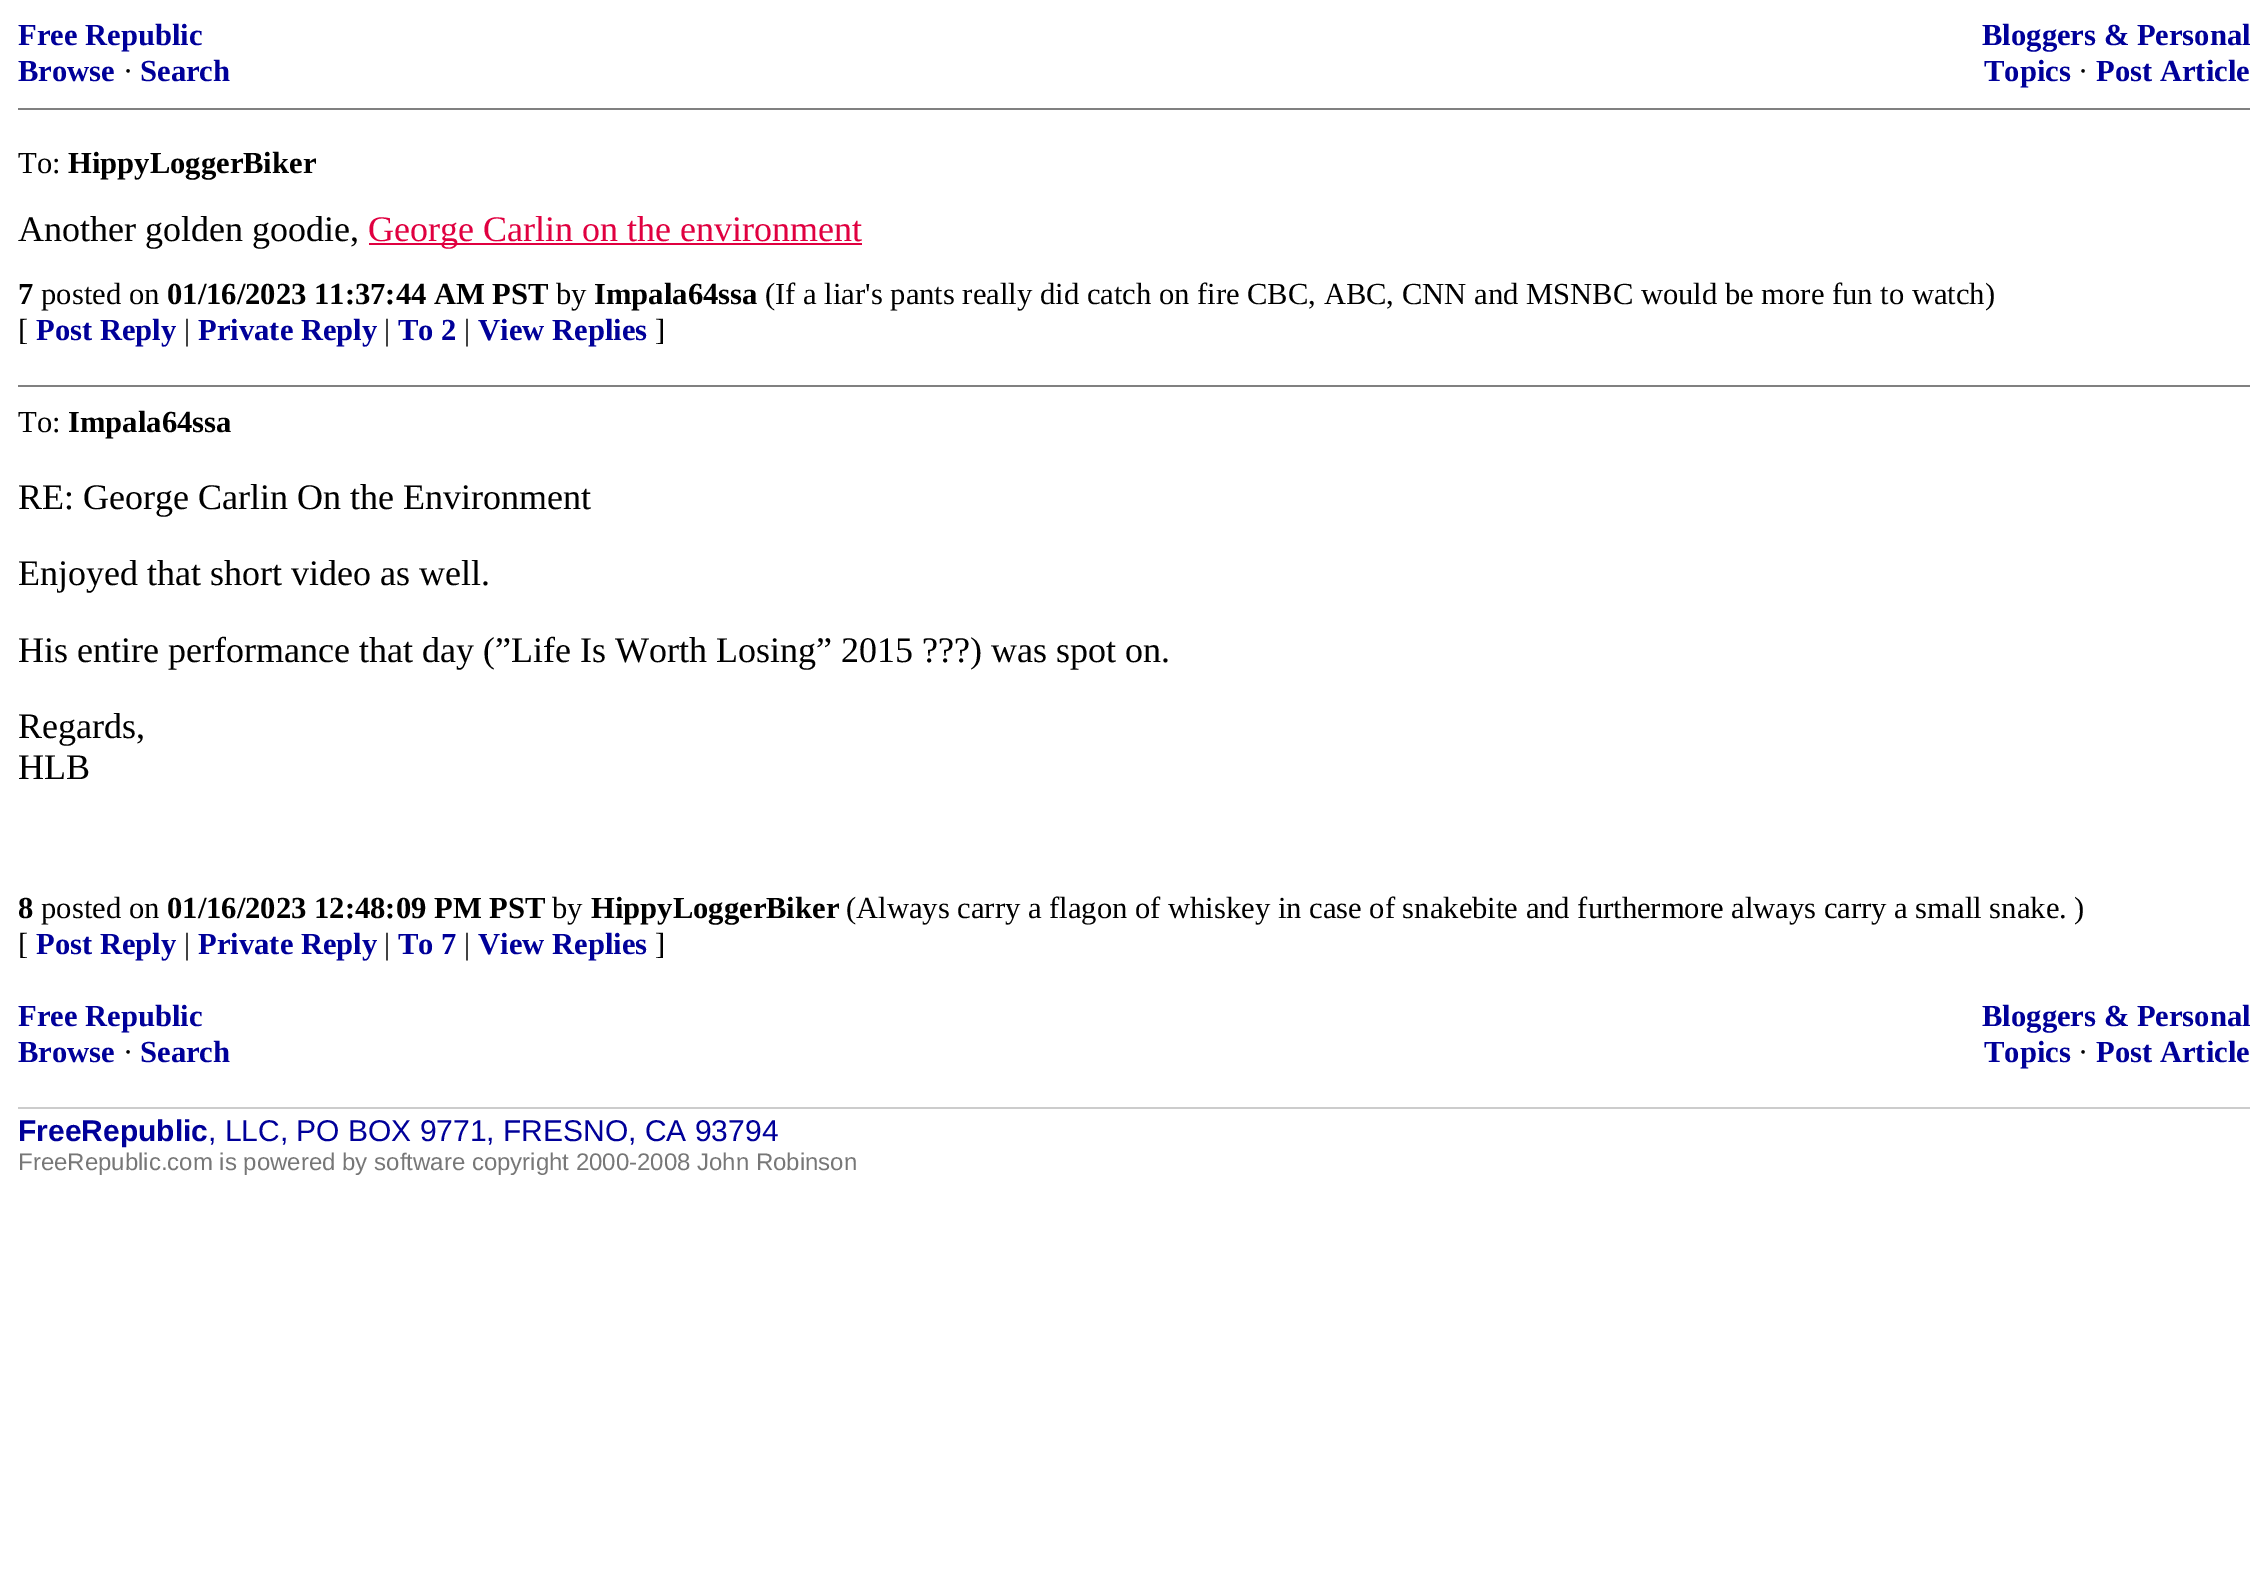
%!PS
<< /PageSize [2268 1594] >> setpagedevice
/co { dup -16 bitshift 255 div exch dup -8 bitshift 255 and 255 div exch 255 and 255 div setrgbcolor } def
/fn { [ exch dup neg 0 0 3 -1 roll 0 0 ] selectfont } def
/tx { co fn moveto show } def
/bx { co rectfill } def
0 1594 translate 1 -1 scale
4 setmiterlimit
0 0 2268 1594 16#FFFFFF bx
18 108 2232 2 16#808080 bx
369 243 493 2 16#E00040 bx
18 385 2232 2 16#808080 bx
18 1107 2232 2 16#CCCCCC bx
(Free Republic) 18 45 /LiberationSerif-Bold 30.6 16#000099 tx
(Browse) 18 81 /LiberationSerif-Bold 30.6 16#000099 tx
(·) 123 81 /LiberationSerif-Regular 30.6 16#000000 tx
(Search) 140 81 /LiberationSerif-Bold 30.6 16#000099 tx
(Bloggers & Personal) 1982 45 /LiberationSerif-Bold 30.6 16#000099 tx
(Topics) 1984 81 /LiberationSerif-Bold 30.6 16#000099 tx
(·) 2078 81 /LiberationSerif-Regular 30.6 16#000000 tx
(Post Article) 2096 81 /LiberationSerif-Bold 30.6 16#000099 tx
(To:) 18 173 /LiberationSerif-Regular 30.6 16#000000 tx
(HippyLoggerBiker) 68 173 /LiberationSerif-Bold 30.6 16#000000 tx
(Another golden goodie,) 18 241 /LiberationSerif-Regular 36 16#000000 tx
(George Carlin on the environment) 368 241 /LiberationSerif-Regular 36 16#E00040 tx
(7) 18 304 /LiberationSerif-Bold 30.6 16#000000 tx
(posted on) 41 304 /LiberationSerif-Regular 30.6 16#000000 tx
(01/16/2023 11:37:44 AM PST) 167 304 /LiberationSerif-Bold 30.6 16#000000 tx
(by) 556 304 /LiberationSerif-Regular 30.6 16#000000 tx
(Impala64ssa) 594 304 /LiberationSerif-Bold 30.6 16#000000 tx
(\(If a liar's pants really did catch on fire CBC, ABC, CNN and MSNBC would be more fun to watch\)) 765 304 /LiberationSerif-Regular 30.6 16#000000 tx
([) 18 340 /LiberationSerif-Regular 30.6 16#000000 tx
(Post Reply) 36 340 /LiberationSerif-Bold 30.6 16#000099 tx
(|) 184 340 /LiberationSerif-Regular 30.6 16#000000 tx
(Private Reply) 198 340 /LiberationSerif-Bold 30.6 16#000099 tx
(|) 384 340 /LiberationSerif-Regular 30.6 16#000000 tx
(To 2) 398 340 /LiberationSerif-Bold 30.6 16#000099 tx
(|) 464 340 /LiberationSerif-Regular 30.6 16#000000 tx
(View Replies) 478 340 /LiberationSerif-Bold 30.6 16#000099 tx
(]) 655 340 /LiberationSerif-Regular 30.6 16#000000 tx
(To:) 18 432 /LiberationSerif-Regular 30.6 16#000000 tx
(Impala64ssa) 68 432 /LiberationSerif-Bold 30.6 16#000000 tx
(RE: George Carlin On the Environment) 18 509 /LiberationSerif-Regular 36 16#000000 tx
(Enjoyed that short video as well.) 18 585 /LiberationSerif-Regular 36 16#000000 tx
(His entire performance that day \(”Life Is Worth Losing” 2015 ???\) was spot on.) 18 662 /LiberationSerif-Regular 36 16#000000 tx
(Regards,) 18 738 /LiberationSerif-Regular 36 16#000000 tx
(HLB) 18 779 /LiberationSerif-Regular 36 16#000000 tx
(8) 18 918 /LiberationSerif-Bold 30.6 16#000000 tx
(posted on) 41 918 /LiberationSerif-Regular 30.6 16#000000 tx
(01/16/2023 12:48:09 PM PST) 167 918 /LiberationSerif-Bold 30.6 16#000000 tx
(by) 552 918 /LiberationSerif-Regular 30.6 16#000000 tx
(HippyLoggerBiker) 591 918 /LiberationSerif-Bold 30.6 16#000000 tx
(\(Always carry a flagon of whiskey in case of snakebite and furthermore always carry a small snake. \)) 846 918 /LiberationSerif-Regular 30.6 16#000000 tx
([) 18 954 /LiberationSerif-Regular 30.6 16#000000 tx
(Post Reply) 36 954 /LiberationSerif-Bold 30.6 16#000099 tx
(|) 184 954 /LiberationSerif-Regular 30.6 16#000000 tx
(Private Reply) 198 954 /LiberationSerif-Bold 30.6 16#000099 tx
(|) 384 954 /LiberationSerif-Regular 30.6 16#000000 tx
(To 7) 398 954 /LiberationSerif-Bold 30.6 16#000099 tx
(|) 464 954 /LiberationSerif-Regular 30.6 16#000000 tx
(View Replies) 478 954 /LiberationSerif-Bold 30.6 16#000099 tx
(]) 655 954 /LiberationSerif-Regular 30.6 16#000000 tx
(Free Republic) 18 1026 /LiberationSerif-Bold 30.6 16#000099 tx
(Browse) 18 1062 /LiberationSerif-Bold 30.6 16#000099 tx
(·) 123 1062 /LiberationSerif-Regular 30.6 16#000000 tx
(Search) 140 1062 /LiberationSerif-Bold 30.6 16#000099 tx
(Bloggers & Personal) 1982 1026 /LiberationSerif-Bold 30.6 16#000099 tx
(Topics) 1984 1062 /LiberationSerif-Bold 30.6 16#000099 tx
(·) 2078 1062 /LiberationSerif-Regular 30.6 16#000000 tx
(Post Article) 2096 1062 /LiberationSerif-Bold 30.6 16#000099 tx
(FreeRepublic) 18 1141 /LiberationSans-Bold 30 16#000099 tx
(, LLC, PO BOX 9771, FRESNO, CA 93794) 208 1141 /LiberationSans-Regular 30 16#000099 tx
(FreeRepublic.com is powered by software copyright 2000-2008 John Robinson) 18 1170 /LiberationSans-Regular 24 16#777777 tx
showpage
